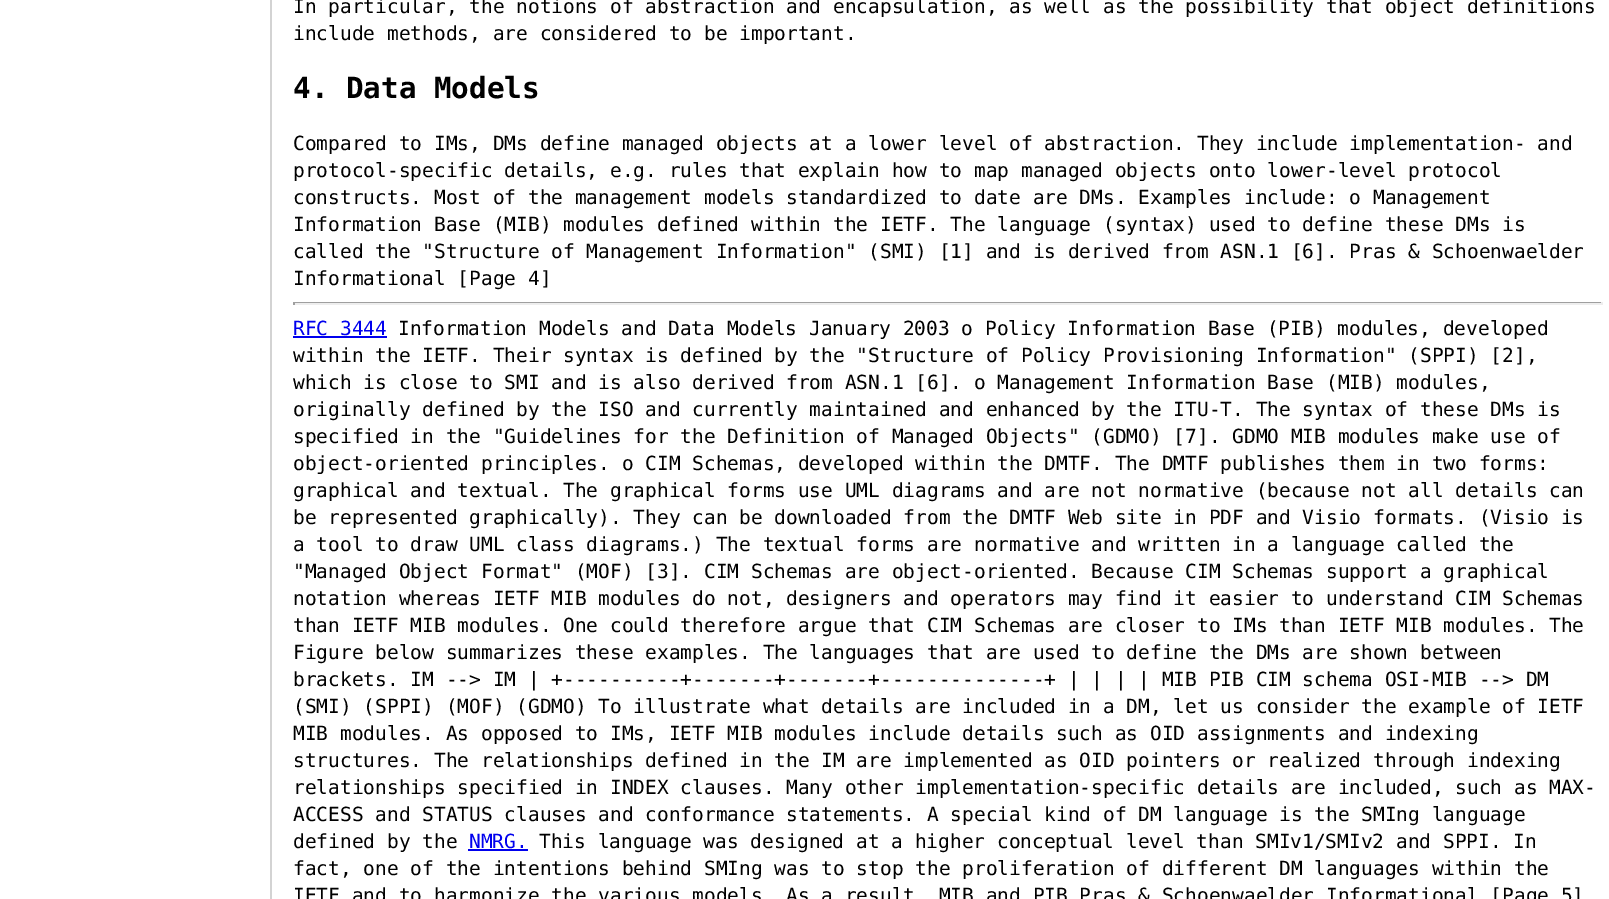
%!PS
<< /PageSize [1609 899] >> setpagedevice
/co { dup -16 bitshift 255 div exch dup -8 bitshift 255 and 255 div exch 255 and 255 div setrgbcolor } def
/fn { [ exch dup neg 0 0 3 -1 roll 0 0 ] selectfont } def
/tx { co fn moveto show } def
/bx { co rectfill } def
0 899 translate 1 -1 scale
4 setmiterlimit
0 0 1609 899 16#FFFFFF bx
270 0 2 899 16#D3D3D3 bx
293 302 1309 1 16#9F9F9F bx
1601 302 2 3 16#EEEEEE bx
293 303 1309 2 16#EEEEEE bx
293 302 2 3 16#9F9F9F bx
293 336 94 2 16#0000EE bx
468 849 60 2 16#0000EE bx
(In particular, the notions of abstraction and encapsulation, as well as the possibility that object definitions) 293 13 /DejaVuSansMono-Regular 19.5 16#000000 tx
(include methods, are considered to be important.) 293 40 /DejaVuSansMono-Regular 19.5 16#000000 tx
(4. Data Models) 293 98 /DejaVuSansMono-Bold 29.25 16#000000 tx
(Compared to IMs, DMs define managed objects at a lower level of abstraction. They include implementation- and) 293 150 /DejaVuSansMono-Regular 19.5 16#000000 tx
(protocol-specific details, e.g. rules that explain how to map managed objects onto lower-level protocol) 293 177 /DejaVuSansMono-Regular 19.5 16#000000 tx
(constructs. Most of the management models standardized to date are DMs. Examples include: o Management) 293 204 /DejaVuSansMono-Regular 19.5 16#000000 tx
(Information Base \(MIB\) modules defined within the IETF. The language \(syntax\) used to define these DMs is) 293 231 /DejaVuSansMono-Regular 19.5 16#000000 tx
(called the "Structure of Management Information" \(SMI\) [1] and is derived from ASN.1 [6]. Pras & Schoenwaelder) 293 258 /DejaVuSansMono-Regular 19.5 16#000000 tx
(Informational [Page 4]) 293 285 /DejaVuSansMono-Regular 19.5 16#000000 tx
(RFC 3444) 293 335 /DejaVuSansMono-Regular 19.5 16#0000EE tx
(Information Models and Data Models January 2003 o Policy Information Base \(PIB\) modules, developed) 398 335 /DejaVuSansMono-Regular 19.5 16#000000 tx
(within the IETF. Their syntax is defined by the "Structure of Policy Provisioning Information" \(SPPI\) [2],) 293 362 /DejaVuSansMono-Regular 19.5 16#000000 tx
(which is close to SMI and is also derived from ASN.1 [6]. o Management Information Base \(MIB\) modules,) 293 389 /DejaVuSansMono-Regular 19.5 16#000000 tx
(originally defined by the ISO and currently maintained and enhanced by the ITU-T. The syntax of these DMs is) 293 416 /DejaVuSansMono-Regular 19.5 16#000000 tx
(specified in the "Guidelines for the Definition of Managed Objects" \(GDMO\) [7]. GDMO MIB modules make use of) 293 443 /DejaVuSansMono-Regular 19.5 16#000000 tx
(object-oriented principles. o CIM Schemas, developed within the DMTF. The DMTF publishes them in two forms:) 293 470 /DejaVuSansMono-Regular 19.5 16#000000 tx
(graphical and textual. The graphical forms use UML diagrams and are not normative \(because not all details can) 293 497 /DejaVuSansMono-Regular 19.5 16#000000 tx
(be represented graphically\). They can be downloaded from the DMTF Web site in PDF and Visio formats. \(Visio is) 293 524 /DejaVuSansMono-Regular 19.5 16#000000 tx
(a tool to draw UML class diagrams.\) The textual forms are normative and written in a language called the) 293 551 /DejaVuSansMono-Regular 19.5 16#000000 tx
("Managed Object Format" \(MOF\) [3]. CIM Schemas are object-oriented. Because CIM Schemas support a graphical) 293 578 /DejaVuSansMono-Regular 19.5 16#000000 tx
(notation whereas IETF MIB modules do not, designers and operators may find it easier to understand CIM Schemas) 293 605 /DejaVuSansMono-Regular 19.5 16#000000 tx
(than IETF MIB modules. One could therefore argue that CIM Schemas are closer to IMs than IETF MIB modules. The) 293 632 /DejaVuSansMono-Regular 19.5 16#000000 tx
(Figure below summarizes these examples. The languages that are used to define the DMs are shown between) 293 659 /DejaVuSansMono-Regular 19.5 16#000000 tx
(brackets. IM --> IM | +----------+-------+-------+--------------+ | | | | MIB PIB CIM schema OSI-MIB --> DM) 293 686 /DejaVuSansMono-Regular 19.5 16#000000 tx
(\(SMI\) \(SPPI\) \(MOF\) \(GDMO\) To illustrate what details are included in a DM, let us consider the example of IETF) 293 713 /DejaVuSansMono-Regular 19.5 16#000000 tx
(MIB modules. As opposed to IMs, IETF MIB modules include details such as OID assignments and indexing) 293 740 /DejaVuSansMono-Regular 19.5 16#000000 tx
(structures. The relationships defined in the IM are implemented as OID pointers or realized through indexing) 293 767 /DejaVuSansMono-Regular 19.5 16#000000 tx
(relationships specified in INDEX clauses. Many other implementation-specific details are included, such as MAX-) 293 794 /DejaVuSansMono-Regular 19.5 16#000000 tx
(ACCESS and STATUS clauses and conformance statements. A special kind of DM language is the SMIng language) 293 821 /DejaVuSansMono-Regular 19.5 16#000000 tx
(defined by the) 293 848 /DejaVuSansMono-Regular 19.5 16#000000 tx
(NMRG.) 469 848 /DejaVuSansMono-Regular 19.5 16#0000EE tx
(This language was designed at a higher conceptual level than SMIv1/SMIv2 and SPPI. In) 539 848 /DejaVuSansMono-Regular 19.5 16#000000 tx
(fact, one of the intentions behind SMIng was to stop the proliferation of different DM languages within the) 293 875 /DejaVuSansMono-Regular 19.5 16#000000 tx
(IETF and to harmonize the various models) 293 902 /DejaVuSansMono-Regular 19.5 16#000000 tx
(As a result, MIB and PIB Pras & Schoenwaelder Informational [Page 5]) 786 902 /DejaVuSansMono-Regular 19.5 16#000000 tx
showpage
